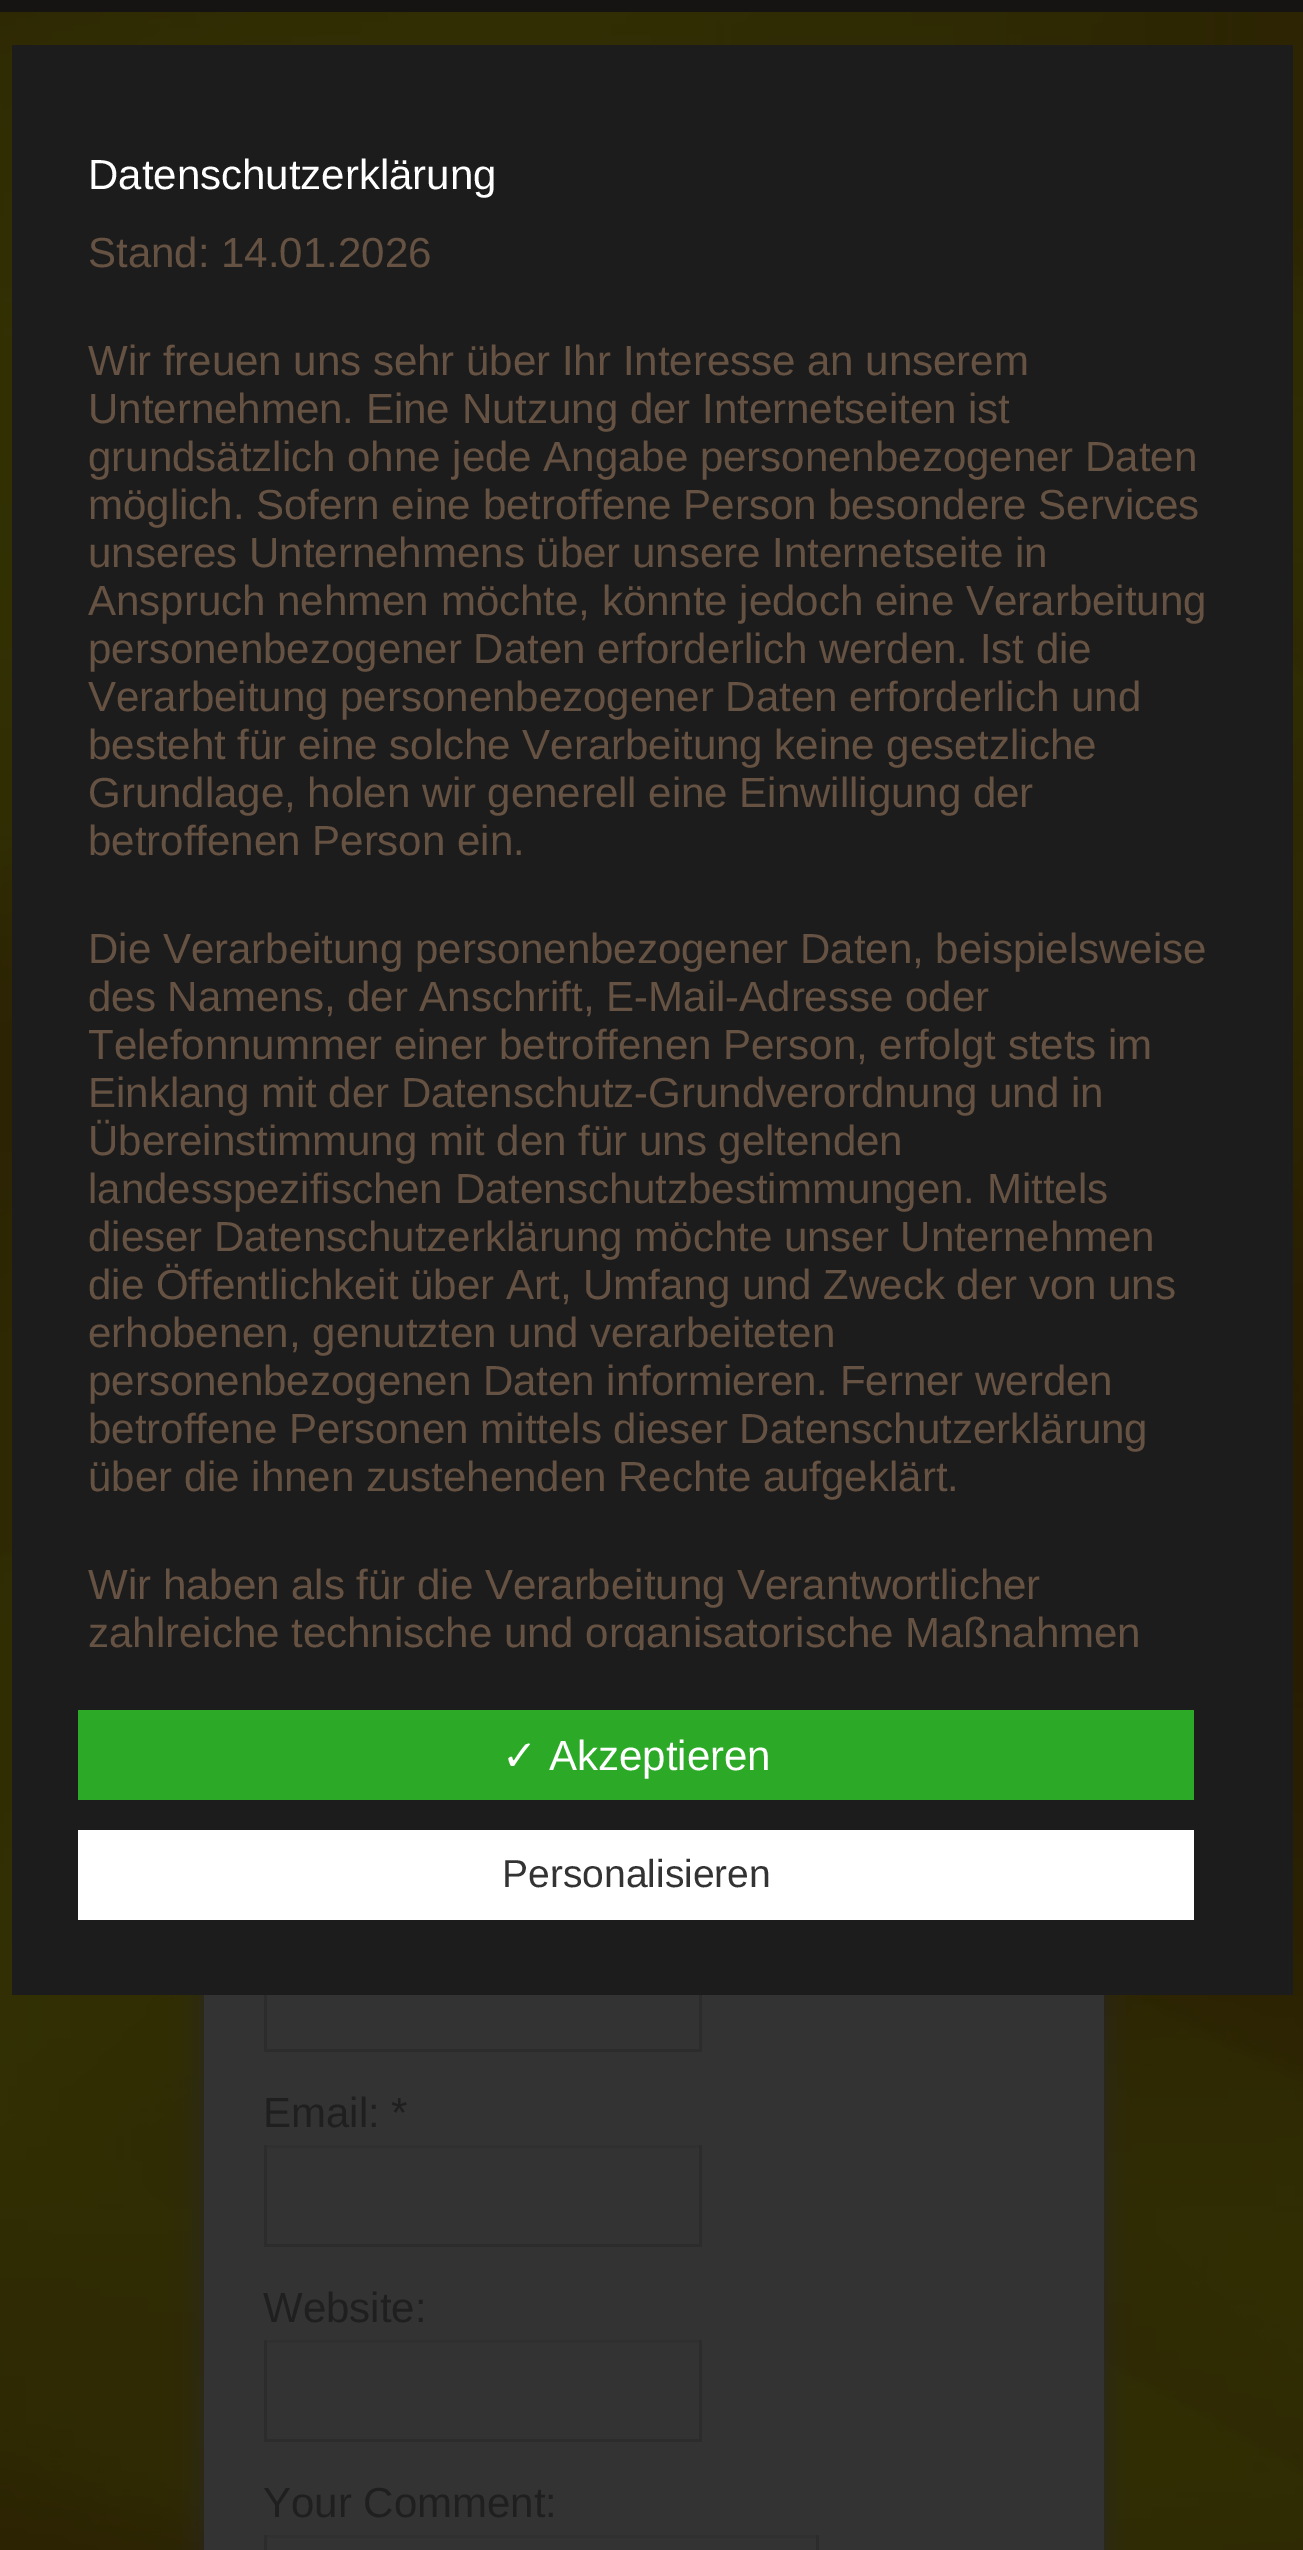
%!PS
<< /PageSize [1303 2550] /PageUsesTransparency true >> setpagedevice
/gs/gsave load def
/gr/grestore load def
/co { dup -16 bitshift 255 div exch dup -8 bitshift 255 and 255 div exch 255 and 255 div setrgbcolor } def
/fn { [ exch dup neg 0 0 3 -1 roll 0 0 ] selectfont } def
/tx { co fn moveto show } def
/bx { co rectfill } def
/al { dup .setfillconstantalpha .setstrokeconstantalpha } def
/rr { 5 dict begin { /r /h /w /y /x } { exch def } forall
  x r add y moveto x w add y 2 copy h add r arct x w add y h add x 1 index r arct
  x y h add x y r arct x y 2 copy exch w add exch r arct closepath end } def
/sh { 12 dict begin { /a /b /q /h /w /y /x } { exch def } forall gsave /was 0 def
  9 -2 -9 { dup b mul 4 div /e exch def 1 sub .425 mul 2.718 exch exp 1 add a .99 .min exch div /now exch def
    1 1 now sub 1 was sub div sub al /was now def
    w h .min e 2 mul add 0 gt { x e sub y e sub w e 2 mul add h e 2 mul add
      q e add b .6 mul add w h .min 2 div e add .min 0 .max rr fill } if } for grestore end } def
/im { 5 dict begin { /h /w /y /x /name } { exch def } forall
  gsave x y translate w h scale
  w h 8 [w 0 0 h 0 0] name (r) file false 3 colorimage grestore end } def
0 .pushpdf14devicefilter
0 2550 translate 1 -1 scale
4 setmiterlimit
0 0 1303 2550 16#FFFFFF bx
0 0 1303 12 16#161412 bx
(media/1.raw) 0 12 1303 2538 im
16#282726 co
204 72 900 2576 48 16.5 1 sh
12 45 1281 1950 16#1D1C1C bx
78 1710 1116 90 16#2CAA27 bx
78 1830 1116 90 16#FFFFFF bx
204 1995 900 555 16#333333 bx
699 1995 3 57 16#2C2C2C bx
264 2049 438 3 16#2C2C2C bx
264 1995 3 57 16#2C2C2C bx
264 2145 438 3 16#303030 bx
699 2145 3 102 16#2C2C2C bx
264 2244 438 3 16#2C2C2C bx
264 2145 3 102 16#2C2C2C bx
264 2340 438 3 16#303030 bx
699 2340 3 102 16#2C2C2C bx
264 2439 438 3 16#2C2C2C bx
264 2340 3 102 16#2C2C2C bx
264 2535 555 3 16#303030 bx
816 2535 3 15 16#2C2C2C bx
264 2535 3 15 16#2C2C2C bx
(Datenschutzerklärung) 88 189 /LiberationSans-Regular 42 16#FFFFFF tx
(Stand: 14.01.2026) 88 267 /LiberationSans-Regular 42 16#665242 tx
(Wir freuen uns sehr über Ihr Interesse an unserem) 88 375 /LiberationSans-Regular 42 16#665242 tx
(Unternehmen. Eine Nutzung der Internetseiten ist) 88 423 /LiberationSans-Regular 42 16#665242 tx
(grundsätzlich ohne jede Angabe personenbezogener Daten) 88 471 /LiberationSans-Regular 42 16#665242 tx
(möglich. Sofern eine betroffene Person besondere Services) 88 519 /LiberationSans-Regular 42 16#665242 tx
(unseres Unternehmens über unsere Internetseite in) 88 567 /LiberationSans-Regular 42 16#665242 tx
(Anspruch nehmen möchte, könnte jedoch eine Verarbeitung) 88 615 /LiberationSans-Regular 42 16#665242 tx
(personenbezogener Daten erforderlich werden. Ist die) 88 663 /LiberationSans-Regular 42 16#665242 tx
(Verarbeitung personenbezogener Daten erforderlich und) 88 711 /LiberationSans-Regular 42 16#665242 tx
(besteht für eine solche Verarbeitung keine gesetzliche) 88 759 /LiberationSans-Regular 42 16#665242 tx
(Grundlage, holen wir generell eine Einwilligung der) 88 807 /LiberationSans-Regular 42 16#665242 tx
(betroffenen Person ein.) 88 855 /LiberationSans-Regular 42 16#665242 tx
(Die Verarbeitung personenbezogener Daten, beispielsweise) 88 963 /LiberationSans-Regular 42 16#665242 tx
(des Namens, der Anschrift, E-Mail-Adresse oder) 88 1011 /LiberationSans-Regular 42 16#665242 tx
(Telefonnummer einer betroffenen Person, erfolgt stets im) 88 1059 /LiberationSans-Regular 42 16#665242 tx
(Einklang mit der Datenschutz-Grundverordnung und in) 88 1107 /LiberationSans-Regular 42 16#665242 tx
(Übereinstimmung mit den für uns geltenden) 88 1155 /LiberationSans-Regular 42 16#665242 tx
(landesspezifischen Datenschutzbestimmungen. Mittels) 88 1203 /LiberationSans-Regular 42 16#665242 tx
(dieser Datenschutzerklärung möchte unser Unternehmen) 88 1251 /LiberationSans-Regular 42 16#665242 tx
(die Öffentlichkeit über Art, Umfang und Zweck der von uns) 88 1299 /LiberationSans-Regular 42 16#665242 tx
(erhobenen, genutzten und verarbeiteten) 88 1347 /LiberationSans-Regular 42 16#665242 tx
(personenbezogenen Daten informieren. Ferner werden) 88 1395 /LiberationSans-Regular 42 16#665242 tx
(betroffene Personen mittels dieser Datenschutzerklärung) 88 1443 /LiberationSans-Regular 42 16#665242 tx
(über die ihnen zustehenden Rechte aufgeklärt.) 88 1491 /LiberationSans-Regular 42 16#665242 tx
(Wir haben als für die Verarbeitung Verantwortlicher) 88 1599 /LiberationSans-Regular 42 16#665242 tx
gs
87 120 1206 1530 rectclip
(zahlreiche technische und organisatorische Maßnahmen) 88 1647 /LiberationSans-Regular 42 16#665242 tx
gr
(✓) 502 1770 /DejaVuSans-Regular 42 16#FFFFFF tx
(Akzeptieren) 549 1770 /LiberationSans-Regular 42 16#FFFFFF tx
(Personalisieren) 502 1887 /LiberationSans-Regular 39 16#333333 tx
(Email: *) 263 2127 /LiberationSans-Regular 42 16#1F1F1F tx
(Website:) 263 2322 /LiberationSans-Regular 42 16#1F1F1F tx
(Your Comment:) 263 2517 /LiberationSans-Regular 42 16#1F1F1F tx
.poppdf14devicefilter showpage
